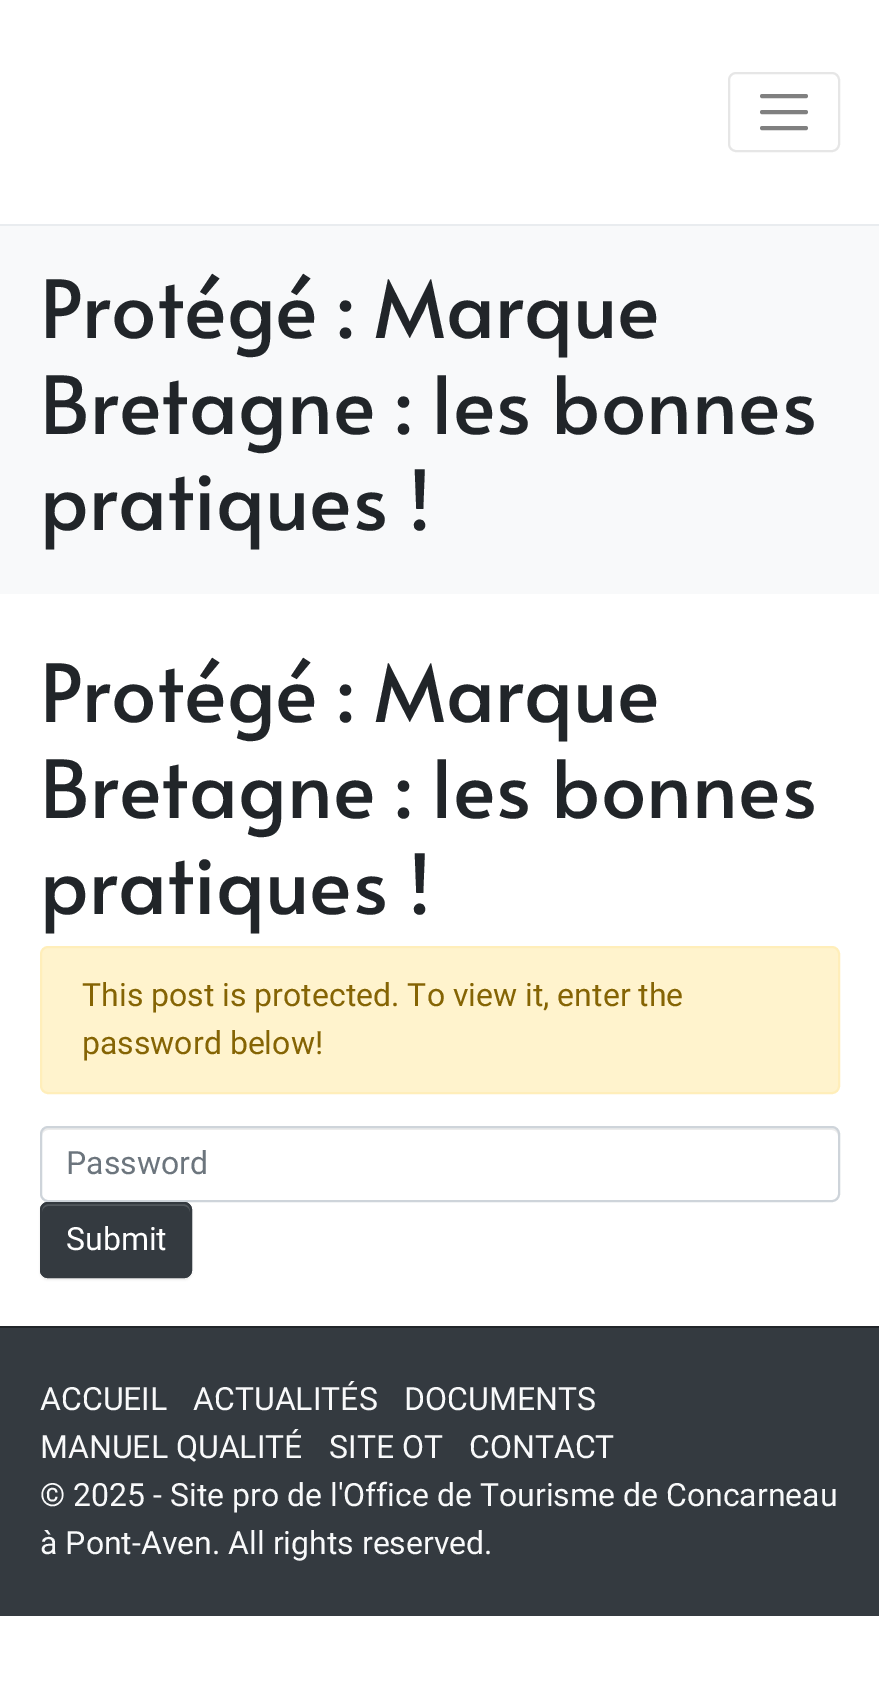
%!PS
<< /PageSize [879 1701] /PageUsesTransparency true >> setpagedevice
/mt/moveto load def
/li/lineto load def
/ct/curveto load def
/cp/closepath load def
/fl/fill load def
/st/stroke load def
/gs/gsave load def
/gr/grestore load def
/lw/setlinewidth load def
/co { dup -16 bitshift 255 div exch dup -8 bitshift 255 and 255 div exch 255 and 255 div setrgbcolor } def
/fn { [ exch dup neg 0 0 3 -1 roll 0 0 ] selectfont } def
/tx { co fn moveto show } def
/bx { co rectfill } def
/al { dup .setfillconstantalpha .setstrokeconstantalpha } def
/rr { 5 dict begin { /r /h /w /y /x } { exch def } forall
  x r add y moveto x w add y 2 copy h add r arct x w add y h add x 1 index r arct
  x y h add x y r arct x y 2 copy exch w add exch r arct closepath end } def
/sh { 12 dict begin { /a /b /q /h /w /y /x } { exch def } forall gsave /was 0 def
  9 -2 -9 { dup b mul 4 div /e exch def 1 sub .425 mul 2.718 exch exp 1 add a .99 .min exch div /now exch def
    1 1 now sub 1 was sub div sub al /was now def
    w h .min e 2 mul add 0 gt { x e sub y e sub w e 2 mul add h e 2 mul add
      q e add b .6 mul add w h .min 2 div e add .min 0 .max rr fill } if } for grestore end } def
0 .pushpdf14devicefilter
0 1701 translate 1 -1 scale
4 setmiterlimit
0 0 879 1701 16#FFFFFF bx
0 224 879 2 16#E9ECEF bx
16#E6E6E6 co
2 lw
729 73 110 78 7 rr st
16#808080 co
4 lw
1 setlinecap
762 96 mt 806 96 li 762 112 mt 806 112 li 762 128 mt 806 128 li st
0 226 879 368 16#F8F9FA bx
16#FFF3CD co
41 947 798 146 7 rr gs fl gr
16#FFEEBA co
2 lw
0 setlinecap
st
16#ECECEC co
48 1130 mt 832 1130 li 835 1130 838 1133 838 1136 ct 838 1134 li 838 1131 835 1128 832 1128 ct 48 1128 li 45 1128 42 1131 42 1134 ct 42 1136 li 42 1133 45 1130 48 1130 ct cp fl
16#CED4DA co
41 1127 798 74 7 rr st
16#000000 co
40 1204 152 76 8 1 .07 sh
16#343A40 co
40 1202 152 76 8 rr fl
16#52585D co
48 1206 mt 184 1206 li 187 1206 190 1209 190 1212 ct 190 1210 li 190 1207 187 1204 184 1204 ct 48 1204 li 45 1204 42 1207 42 1210 ct 42 1212 li 42 1209 45 1206 48 1206 ct cp fl
16#343A40 co
41 1203 150 74 7 rr st
0 1328 879 288 16#343A40 bx
0 1326 879 2 16#212529 bx
(Protégé : Marque) 40 338 /Alata-Regular 80 16#212529 tx
(Bretagne : les bonnes) 40 434 /Alata-Regular 80 16#212529 tx
(pratiques !) 40 530 /Alata-Regular 80 16#212529 tx
(Protégé : Marque) 40 722 /Alata-Regular 80 16#212529 tx
(Bretagne : les bonnes) 40 818 /Alata-Regular 80 16#212529 tx
(pratiques !) 40 914 /Alata-Regular 80 16#212529 tx
(This post is protected. To view it, enter the) 82 1006 /Roboto-Regular 32 16#856404 tx
(password below!) 82 1054 /Roboto-Regular 32 16#856404 tx
(Password) 66 1174 /Roboto-Regular 32 16#6C757D tx
(Submit) 66 1250 /Roboto-Regular 32 16#FFFFFF tx
(ACCUEIL) 40 1410 /Roboto-Regular 32 16#F8F9FA tx
(ACTUALITÉS) 193 1410 /Roboto-Regular 32 16#F8F9FA tx
(DOCUMENTS) 404 1410 /Roboto-Regular 32 16#F8F9FA tx
(MANUEL QUALITÉ) 40 1458 /Roboto-Regular 32 16#F8F9FA tx
(SITE OT) 329 1458 /Roboto-Regular 32 16#F8F9FA tx
(CONTACT) 469 1458 /Roboto-Regular 32 16#F8F9FA tx
(© 2025 - Site pro de l'Office de Tourisme de Concarneau) 40 1506 /Roboto-Regular 32 16#F8F9FA tx
(à Pont-Aven. All rights reserved.) 40 1554 /Roboto-Regular 32 16#F8F9FA tx
.poppdf14devicefilter showpage
